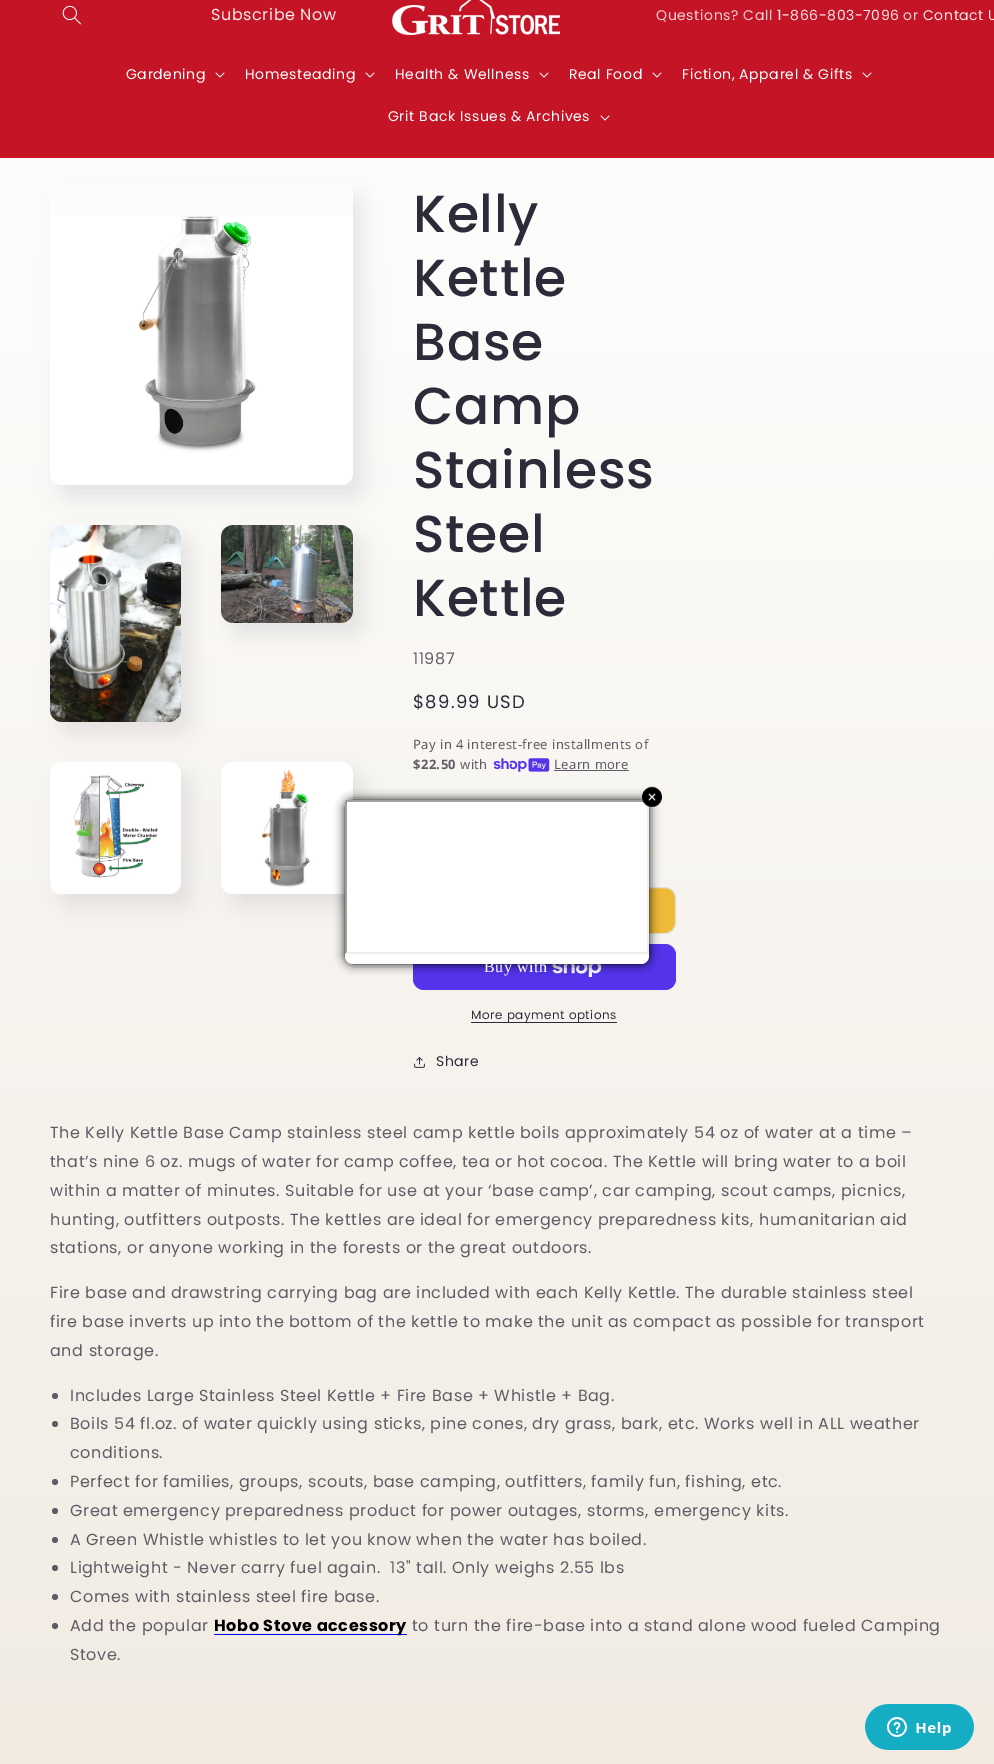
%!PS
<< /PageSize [994 1764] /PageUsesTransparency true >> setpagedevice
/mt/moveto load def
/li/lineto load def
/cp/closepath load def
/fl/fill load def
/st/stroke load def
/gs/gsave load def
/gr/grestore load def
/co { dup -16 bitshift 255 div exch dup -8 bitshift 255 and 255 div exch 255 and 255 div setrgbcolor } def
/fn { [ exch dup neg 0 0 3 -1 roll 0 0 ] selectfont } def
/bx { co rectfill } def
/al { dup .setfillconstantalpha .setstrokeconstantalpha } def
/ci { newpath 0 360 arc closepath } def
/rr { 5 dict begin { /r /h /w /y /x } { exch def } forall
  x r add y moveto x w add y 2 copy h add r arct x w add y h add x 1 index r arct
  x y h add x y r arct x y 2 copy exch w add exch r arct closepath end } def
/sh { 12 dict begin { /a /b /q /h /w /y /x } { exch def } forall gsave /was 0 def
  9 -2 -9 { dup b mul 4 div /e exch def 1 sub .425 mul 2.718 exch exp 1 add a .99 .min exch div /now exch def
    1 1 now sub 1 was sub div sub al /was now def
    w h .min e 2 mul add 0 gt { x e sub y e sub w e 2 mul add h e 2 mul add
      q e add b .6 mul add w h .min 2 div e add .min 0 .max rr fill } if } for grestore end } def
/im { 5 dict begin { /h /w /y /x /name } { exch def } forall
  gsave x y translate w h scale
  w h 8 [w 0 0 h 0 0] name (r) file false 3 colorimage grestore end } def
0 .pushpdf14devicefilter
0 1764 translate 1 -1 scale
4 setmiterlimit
0 0 994 1764 16#FFFFFF bx
gs 0 158 mt 994 158 li 994 1764 li 0 1764 li cp clip newpath
<< /ShadingType 2 /ColorSpace /DeviceRGB /Coords [497 0 497 1764] /Extend [true true] /Function << /FunctionType 2 /Domain [0 1] /C0 [1 1 1] /C1 [.945 .922 .886] /N 1 >> >> shfill gr
0 0 994 158 16#C41425 bx
(media/1.raw) 62 5 19 20 im
(media/2.raw) 392 0 168 35 im
(media/3.raw) 215 72 10 6 im
(media/3.raw) 365 72 10 6 im
(media/3.raw) 539 72 10 6 im
(media/3.raw) 652 72 10 6 im
(media/3.raw) 862 72 10 6 im
(media/3.raw) 600 115 10 6 im
16#2E2A39 co
60 194 303 303 12 10 .1 sh
gs 50 182 303 303 12 rr clip newpath
<< /ShadingType 2 /ColorSpace /DeviceRGB /Coords [497 0 497 1764] /Extend [true true] /Function << /FunctionType 2 /Domain [0 1] /C0 [1 1 1] /C1 [.945 .922 .886] /N 1 >> >> shfill gr
(media/4.raw) 50 216 303 269 im
60 537 131 197 12 10 .1 sh
(media/5.raw) 50 525 131 197 im
231 537 132 98 12 10 .1 sh
(media/6.raw) 221 525 132 98 im
60 774 131 132 12 10 .1 sh
(media/7.raw) 50 762 131 132 im
231 774 132 132 12 10 .1 sh
(media/8.raw) 221 762 132 132 im
(media/9.raw) 493 758 57 14 im
554 770 75 1 16#615D67 bx
16#EEBA37 co
413.5 887.5 262 46 10.5 rr gs fl gr
16#FFFFFF co
st
0.15 al
16#2E2A39 co
413.5 887.5 262 46 10.5 rr st
1 al
16#5433EB co
413 944 263 46 11 rr fl
(media/10.raw) 552 964 50 13 im
471 1022 146 1 16#2E2A39 bx
(media/11.raw) 414 1057 11 11 im
16#605B65 co
55 1396 3 ci fl
55 1424 3 ci fl
16#5F5B65 co
55 1482 3 ci fl
16#5F5B64 co
55 1511 3 ci fl
55 1540 3 ci fl
55 1568 3 ci fl
55 1597 3 ci fl
55 1626 3 ci fl
214 1634 193 1 16#0000FF bx
16#000000 co
345 800 304 164 8 5 1 sh
16#FFFFFF co
345 800 304 164 8 rr fl
16#9F9F9F co
345 800 mt 649 800 li 647 802 li 347 802 li cp fl
16#EEEEEE co
649 800 mt 649 954 li 647 952 li 647 802 li cp fl
(media/12.raw) 642 786 20 21 im
649 954 mt 345 954 li 347 952 li 647 952 li cp fl
16#9F9F9F co
345 954 mt 345 800 li 347 802 li 347 952 li cp fl
(media/13.raw) 865 1704 109 46 im
/Poppins-Regular 16 fn
16#F9E8E9 co
211 20 mt .6 0 (Subscribe Now) ashow
/Poppins-Regular 14 fn
16#F3D0D3 co
656 20 mt .6 0 (Questions? Call) ashow
16#F9E8E9 co
777 20 mt .6 0 (1-866-803-7096) ashow
16#F3D0D3 co
903 20 mt .6 0 (or) ashow
16#F9E8E9 co
923 20 mt .6 0 (Contact U) ashow
16#FFFFFF co
126 79 mt .6 0 (Gardening) ashow
245 79 mt .6 0 (Homesteading) ashow
395 79 mt .6 0 (Health & Wellness) ashow
569 79 mt .6 0 (Real Food) ashow
682 79 mt .6 0 (Fiction, Apparel & Gifts) ashow
388 121 mt .6 0 (Grit Back Issues & Archives) ashow
/Poppins-Medium 52 fn
16#2E2A39 co
413 232 mt .75 0 (Kelly) ashow
413 296 mt .75 0 (Kettle) ashow
413 360 mt .75 0 (Base) ashow
413 424 mt .75 0 (Camp) ashow
413 488 mt .75 0 (Stainless) ashow
413 552 mt .75 0 (Steel) ashow
413 616 mt .75 0 (Kettle) ashow
/Poppins-Regular 16 fn
16#605C66 co
413 664 mt .6 0 (11987) ashow
/Poppins-Regular 18 fn
16#2E2A39 co
413 708 mt 1.25 0 ($89.99 USD) ashow
/NotoSans-Regular 13 fn
16#605C66 co
413 749 mt .4 0 (Pay in 4 interest-free installments of) ashow
/NotoSans-Bold 13 fn
413 769 mt .4 0 ($22.50) ashow
/NotoSans-Regular 13 fn
460 769 mt .4 0 (with) ashow
554 769 mt .4 0 (Learn more) ashow
/LiberationSerif-Regular 16 fn
16#FFFFFF co
484 972 mt .6 0 (Buy with) ashow
/Poppins-Regular 12 fn
16#2E2A39 co
471 1019 mt .5 0 (More payment options) ashow
/Poppins-Regular 14 fn
436 1066 mt .6 0 (Share) ashow
/Poppins-Regular 16 fn
16#605C66 co
50 1138 mt .6 0 (The Kelly Kettle Base Camp stainless steel camp kettle boils approximately 54 oz of water at a time –) ashow
50 1167 mt .6 0 (that’s nine 6 oz. mugs of water for camp coffee, tea or hot cocoa. The Kettle will bring water to a boil) ashow
50 1196 mt .6 0 (within a matter of minutes. Suitable for use at your ‘base camp’, car camping, scout camps, picnics,) ashow
50 1225 mt .6 0 (hunting, outfitters outposts. The kettles are ideal for emergency preparedness kits, humanitarian aid) ashow
50 1253 mt .6 0 (stations, or anyone working in the forests or the great outdoors.) ashow
50 1298 mt .6 0 (Fire base and drawstring carrying bag are included with each Kelly Kettle. The durable stainless steel) ashow
50 1327 mt .6 0 (fire base inverts up into the bottom of the kettle to make the unit as compact as possible for transport) ashow
50 1356 mt .6 0 (and storage.) ashow
70 1401 mt .6 0 (Includes Large Stainless Steel Kettle + Fire Base + Whistle + Bag.) ashow
70 1429 mt .6 0 (Boils 54 fl.oz. of water quickly using sticks, pine cones, dry grass, bark, etc. Works well in ALL weather) ashow
70 1458 mt .6 0 (conditions.) ashow
70 1487 mt .6 0 (Perfect for families, groups, scouts, base camping, outfitters, family fun, fishing, etc.) ashow
70 1516 mt .6 0 (Great emergency preparedness product for power outages, storms, emergency kits.) ashow
70 1545 mt .6 0 (A Green Whistle whistles to let you know when the water has boiled.) ashow
70 1573 mt .6 0 (Lightweight - Never carry fuel again.  13" tall. Only weighs 2.55 lbs) ashow
70 1602 mt .6 0 (Comes with stainless steel fire base.) ashow
70 1631 mt .6 0 (Add the popular) ashow
/Poppins-Bold 16 fn
16#000000 co
214 1631 mt .6 0 (Hobo Stove accessory) ashow
/Poppins-Regular 16 fn
16#605C66 co
412 1631 mt .6 0 (to turn the fire-base into a stand alone wood fueled Camping) ashow
70 1660 mt .6 0 (Stove.) ashow
.poppdf14devicefilter showpage
